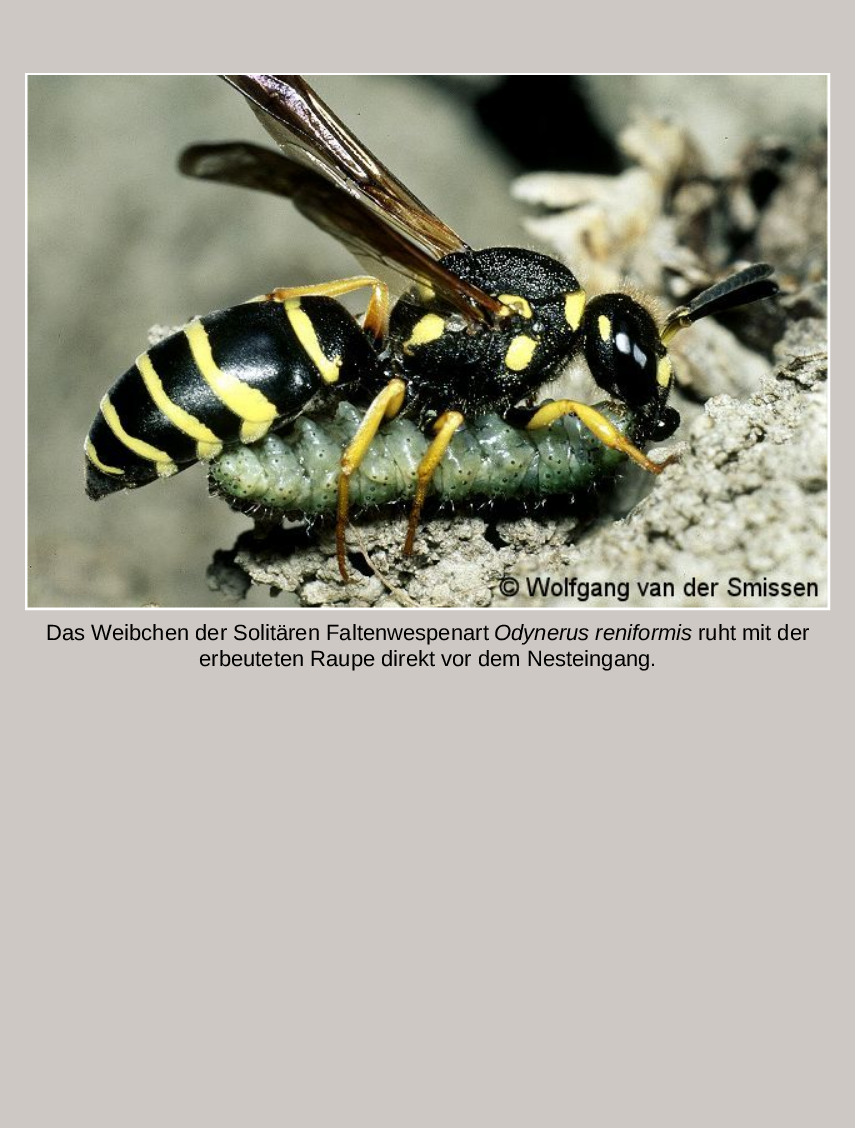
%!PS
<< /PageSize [855 1128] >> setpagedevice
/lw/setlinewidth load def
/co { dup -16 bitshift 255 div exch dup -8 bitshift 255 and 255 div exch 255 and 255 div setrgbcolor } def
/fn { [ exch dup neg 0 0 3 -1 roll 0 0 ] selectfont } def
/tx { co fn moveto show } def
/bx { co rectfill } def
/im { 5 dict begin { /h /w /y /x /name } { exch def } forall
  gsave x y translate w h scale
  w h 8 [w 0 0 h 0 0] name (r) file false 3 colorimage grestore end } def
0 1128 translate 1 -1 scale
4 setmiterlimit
0 0 855 1128 16#CDC8C3 bx
16#FFFFFF co
3 lw
26.5 74.5 802 534 rectstroke
(media/1.raw) 27 75 801 533 im
(Das Weibchen der Solitären Faltenwespenart) 46 640 /LiberationSans-Regular 22 16#000000 tx
(Odynerus reniformis) 494 640 /LiberationSans-Italic 22 16#000000 tx
(ruht mit der) 698 640 /LiberationSans-Regular 22 16#000000 tx
(erbeuteten Raupe direkt vor dem Nesteingang.) 199 666 /LiberationSans-Regular 22 16#000000 tx
showpage
